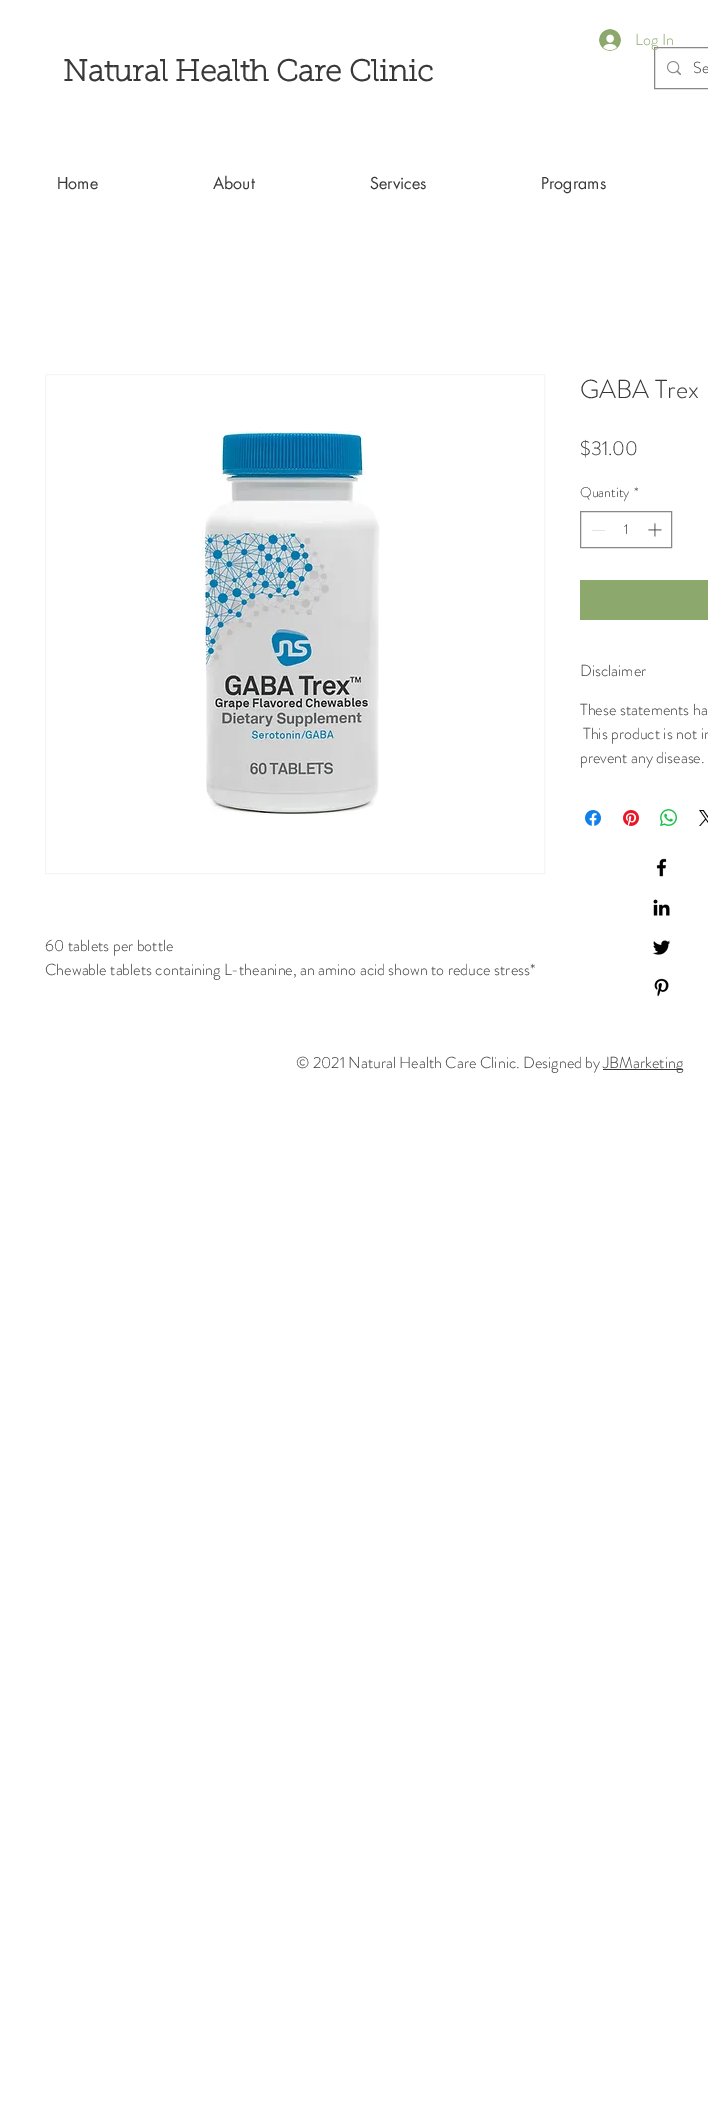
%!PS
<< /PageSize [708 2121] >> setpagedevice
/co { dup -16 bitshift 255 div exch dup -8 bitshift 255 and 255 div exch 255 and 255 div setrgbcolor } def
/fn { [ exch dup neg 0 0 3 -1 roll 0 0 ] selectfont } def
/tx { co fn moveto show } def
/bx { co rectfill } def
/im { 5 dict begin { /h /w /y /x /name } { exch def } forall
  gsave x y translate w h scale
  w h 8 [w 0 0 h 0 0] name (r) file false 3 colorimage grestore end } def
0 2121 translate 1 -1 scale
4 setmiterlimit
0 0 708 2121 16#FFFFFF bx
(media/1.raw) 599 29 22 22 im
16#888888 co
654.5 47.5 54 41 rectstroke
(media/2.raw) 667 61 14 14 im
580.5 511.5 91 36 rectstroke
592 530 13 1 16#E3E3E3 bx
(media/3.raw) 648 523 14 14 im
580 580 128 40 16#8DA86D bx
(media/4.raw) 585 810 16 16 im
(media/5.raw) 623 810 16 16 im
(media/6.raw) 660 809 17 17 im
(media/7.raw) 699 810 9 16 im
16#F5F5F5 co
45.5 374.5 499 499 rectstroke
(media/8.raw) 198 431 182 384 im
(media/9.raw) 656 858 11 19 im
(media/10.raw) 653 899 17 17 im
(media/11.raw) 653 940 18 15 im
(media/12.raw) 654 978 15 19 im
603 1069 80 1 16#383838 bx
(Log In) 635 45 /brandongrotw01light-Light 16 16#8DA86D tx
(Natural Health Care Clinic) 63 81 /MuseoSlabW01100-Bold 30 16#383838 tx
(Se) 693 73 /brandongrotw01light-Light 16 16#383838 tx
(Home) 57 189 /futura-Regular 16 16#383838 tx
(About) 213 189 /futura-Regular 16 16#383838 tx
(Services) 370 189 /futura-Regular 16 16#383838 tx
(Programs) 541 189 /futura-Regular 16 16#383838 tx
(GABA Trex) 580 398 /brandongrotw01light-Light 26 16#383838 tx
($31.00) 580 455 /brandongrotw01light-Light 20 16#383838 tx
(Quantity) 580 497 /brandongrotw01light-Light 14 16#383838 tx
(*) 634 497 /brandongrotw01light-Light 14 16#383838 tx
(1) 624 534 /brandongrotw01light-Light 14 16#383838 tx
(Disclaimer) 580 676 /brandongrotw01light-Light 16 16#383838 tx
(These statements ha) 580 715 /brandongrotw01light-Light 16 16#383838 tx
(This product is not in) 583 739 /brandongrotw01light-Light 16 16#383838 tx
(prevent any disease.) 580 763 /brandongrotw01light-Light 16 16#383838 tx
(60 tablets per bottle) 45 951 /brandongrotw01light-Light 16 16#383838 tx
(Chewable tablets containing L-theanine, an amino acid shown to reduce stress*) 45 975 /brandongrotw01light-Light 16 16#383838 tx
(© 2021 Natural Health Care Clinic. Designed by) 296 1068 /brandongrotw01light-Light 16 16#383838 tx
(JBMarketing) 603 1068 /brandongrotw01light-Light 16 16#383838 tx
showpage
